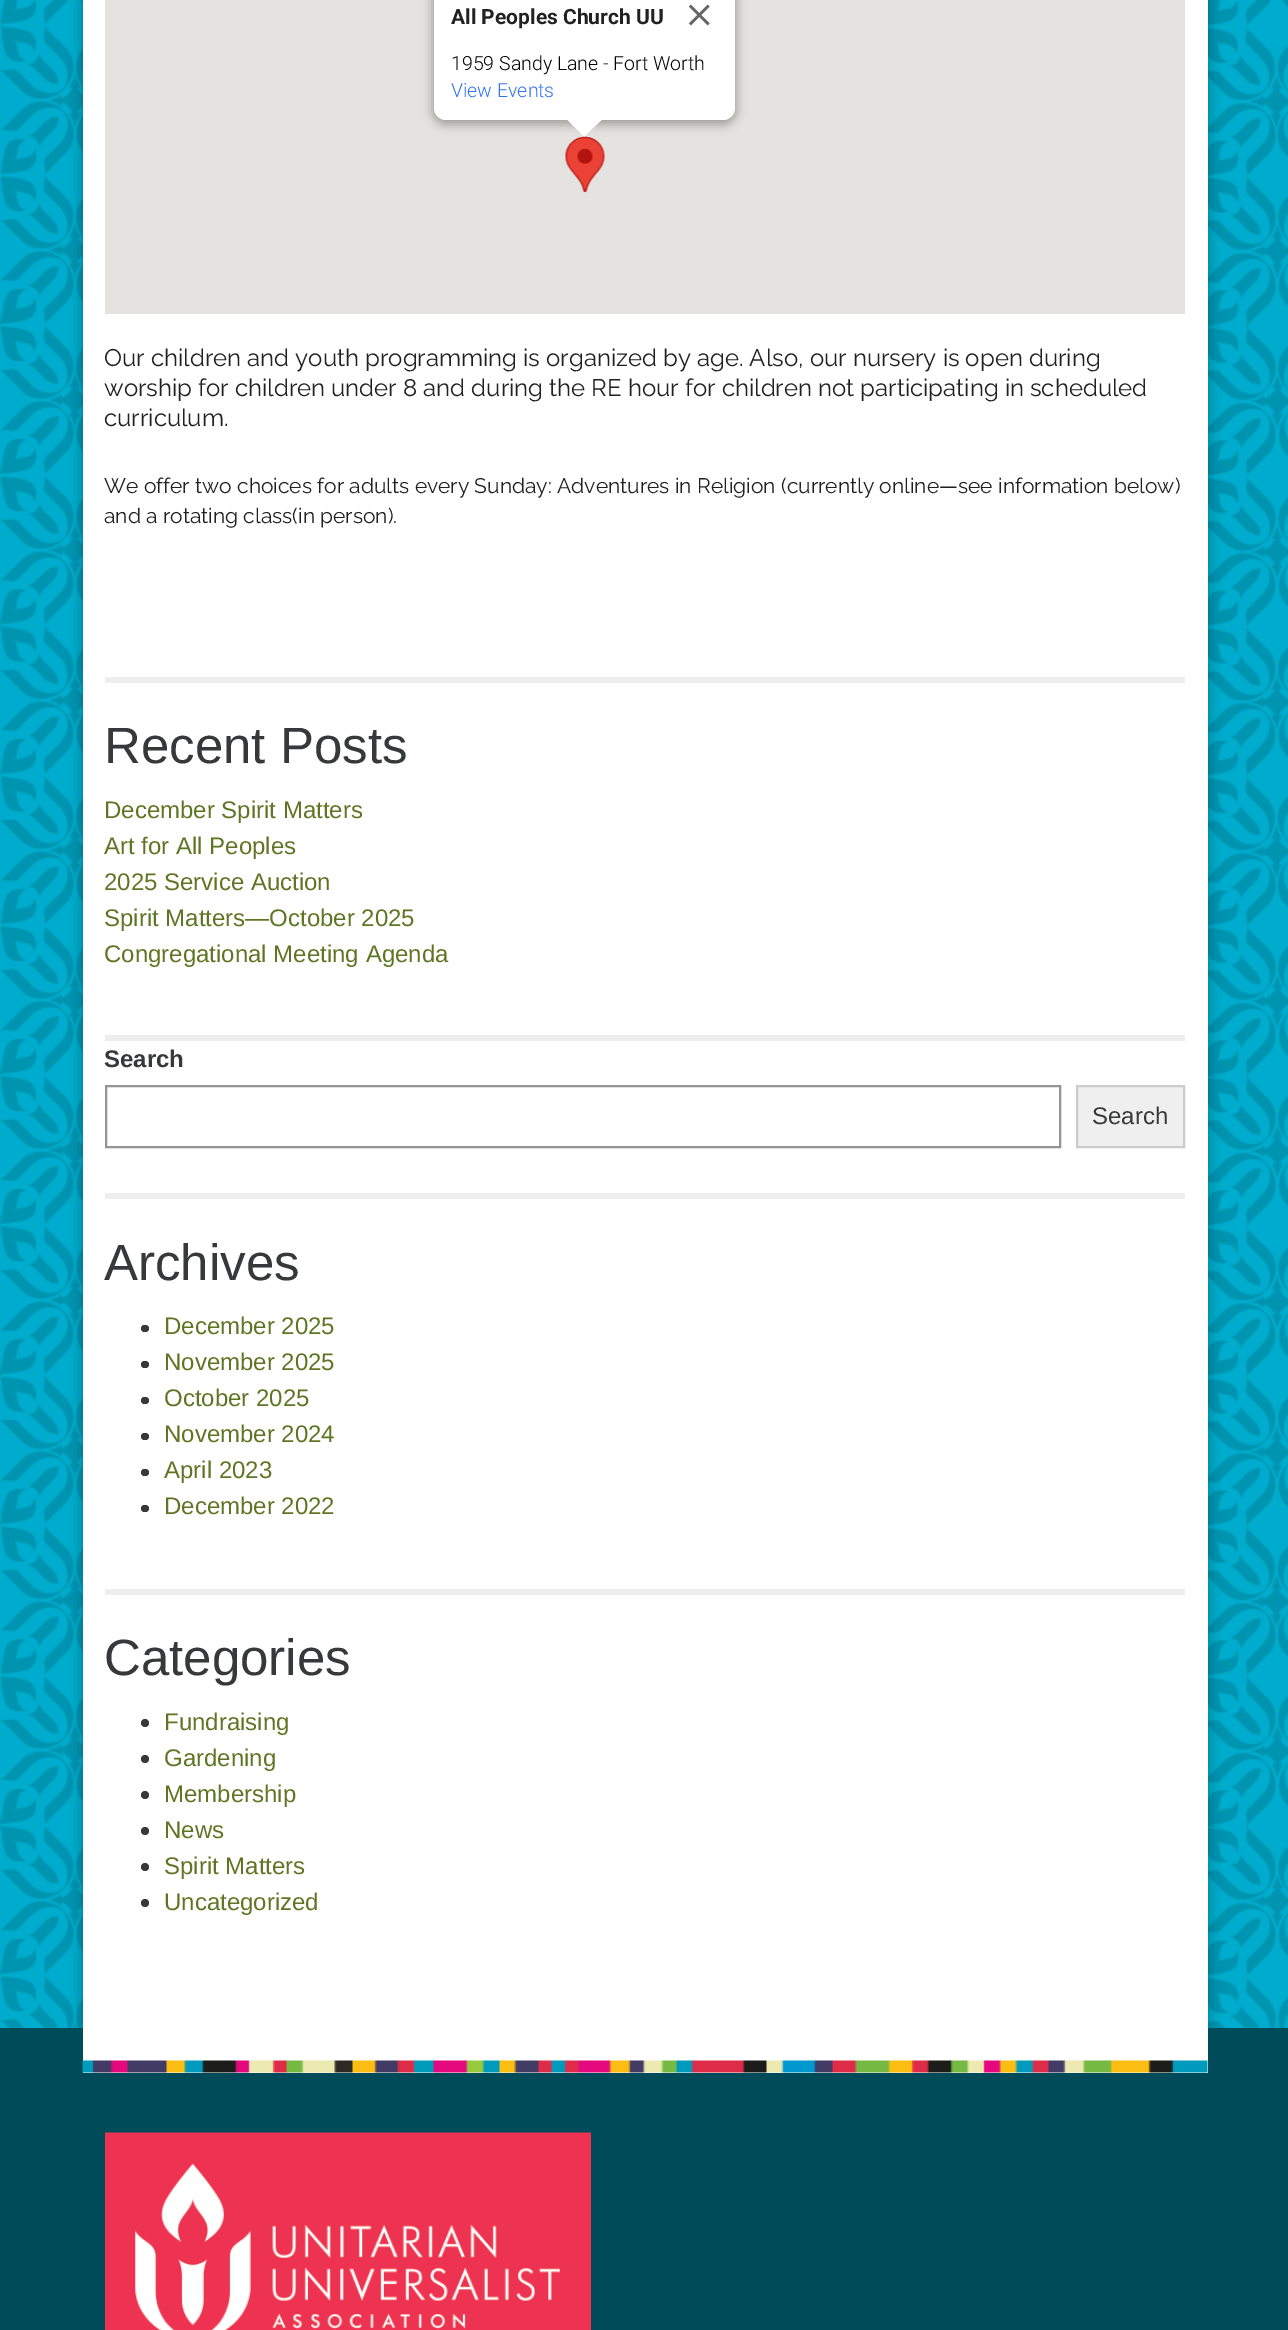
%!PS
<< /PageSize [1288 2330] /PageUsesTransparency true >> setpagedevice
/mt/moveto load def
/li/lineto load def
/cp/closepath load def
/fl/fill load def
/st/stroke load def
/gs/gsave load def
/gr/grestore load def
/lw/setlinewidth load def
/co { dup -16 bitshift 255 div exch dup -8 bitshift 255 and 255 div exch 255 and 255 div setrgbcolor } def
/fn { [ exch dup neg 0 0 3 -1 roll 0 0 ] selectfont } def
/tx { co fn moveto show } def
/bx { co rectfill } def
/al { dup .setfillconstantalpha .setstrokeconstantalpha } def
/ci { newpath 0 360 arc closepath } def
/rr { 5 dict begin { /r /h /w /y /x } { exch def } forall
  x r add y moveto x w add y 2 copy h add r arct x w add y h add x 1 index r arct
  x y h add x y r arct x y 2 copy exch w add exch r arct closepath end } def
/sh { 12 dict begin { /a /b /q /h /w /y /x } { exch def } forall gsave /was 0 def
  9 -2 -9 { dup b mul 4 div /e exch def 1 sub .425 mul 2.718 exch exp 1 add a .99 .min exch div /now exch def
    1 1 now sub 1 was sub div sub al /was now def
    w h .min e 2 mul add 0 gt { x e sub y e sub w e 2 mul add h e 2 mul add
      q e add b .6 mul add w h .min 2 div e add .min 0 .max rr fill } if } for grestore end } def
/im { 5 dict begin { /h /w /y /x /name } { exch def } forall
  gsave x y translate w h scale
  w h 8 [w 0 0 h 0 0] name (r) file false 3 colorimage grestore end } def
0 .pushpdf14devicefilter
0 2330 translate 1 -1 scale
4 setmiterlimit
0 0 1288 2330 16#FFFFFF bx
(media/1.raw) 0 0 1288 2028 im
16#000000 co
83 -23 1125 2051 0 7.5 .3 sh
83 0 1125 2028 16#FFFFFF bx
105 0 1080 314 16#E5E3DF bx
(media/3.raw) 565 136 40 57 im
16#000000 co
432 -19 305 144 14 5 .3 sh
16#FFFFFF co
434 -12 301 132 12 rr fl
(media/2.raw) 688 4 22 22 im
567 119 mt 567 119.5 li 584 136.5 li 602.5 119 li cp fl
105 677 1080 6 16#EEEEEE bx
105 1035 1080 6 16#EEEEEE bx
16#949494 co
2 lw
106 1086 954 61 rectstroke
16#EFEFEF co
1077 1086 mt 1184 1086 li 1184 1147 li 1077 1147 li cp gs fl gr
16#CCCCCC co
st
105 1193 1080 6 16#EEEEEE bx
16#373839 co
141 1325 8 7 3.5 rr fl
141 1361 8 7 3.5 rr fl
141 1397 8 7 3.5 rr fl
141 1433 8 7 3.5 rr fl
141 1469 8 7 3.5 rr fl
141 1505 8 7 3.5 rr fl
105 1589 1080 6 16#EEEEEE bx
16#373839 co
145 1723 4 ci fl
145 1759 4 ci fl
145 1795 4 ci fl
145 1831 4 ci fl
145 1867 4 ci fl
145 1903 4 ci fl
0 2028 1288 302 16#004B5A bx
83 2028 1125 45 16#FFFFFF bx
(media/4.raw) 82 2060 1126 13 im
(media/5.raw) 105 2132 486 198 im
(All Peoples Church UU) 451 24 /Roboto-Bold 21 16#212121 tx
(1959 Sandy Lane - Fort Worth) 451 70 /Roboto-Light 19.5 16#000000 tx
(View Events) 451 97 /Roboto-Light 19.5 16#3372F0 tx
(Our children and youth programming is organized by age. Also, our nursery is open during) 104 366 /Raleway-Regular 24 16#212121 tx
(worship for children under 8 and during the RE hour for children not participating in scheduled) 104 396 /Raleway-Regular 24 16#212121 tx
(curriculum.) 104 426 /Raleway-Regular 24 16#212121 tx
(We offer two choices for adults every Sunday: Adventures in Religion \(currently online—see information below\)) 104 493 /Raleway-Regular 21 16#212121 tx
(and a rotating class\(in person\).) 104 523 /Raleway-Regular 21 16#212121 tx
(Recent Posts) 104 763 /LiberationSans-Regular 51 16#373839 tx
(December Spirit Matters) 104 818 /LiberationSans-Regular 24 16#607523 tx
(Art for All Peoples) 104 854 /LiberationSans-Regular 24 16#607523 tx
(2025 Service Auction) 104 890 /LiberationSans-Regular 24 16#607523 tx
(Spirit Matters—October 2025) 104 926 /LiberationSans-Regular 24 16#607523 tx
(Congregational Meeting Agenda) 104 962 /LiberationSans-Regular 24 16#607523 tx
(Search) 104 1067 /LiberationSans-Bold 24 16#373839 tx
(Search) 1092 1124 /LiberationSans-Regular 24 16#373839 tx
(Archives) 104 1280 /LiberationSans-Regular 51 16#373839 tx
(December 2025) 164 1334 /LiberationSans-Regular 24 16#607523 tx
(November 2025) 164 1370 /LiberationSans-Regular 24 16#607523 tx
(October 2025) 164 1406 /LiberationSans-Regular 24 16#607523 tx
(November 2024) 164 1442 /LiberationSans-Regular 24 16#607523 tx
(April 2023) 164 1478 /LiberationSans-Regular 24 16#607523 tx
(December 2022) 164 1514 /LiberationSans-Regular 24 16#607523 tx
(Categories) 104 1675 /LiberationSans-Regular 51 16#373839 tx
(Fundraising) 164 1730 /LiberationSans-Regular 24 16#607523 tx
(Gardening) 164 1766 /LiberationSans-Regular 24 16#607523 tx
(Membership) 164 1802 /LiberationSans-Regular 24 16#607523 tx
(News) 164 1838 /LiberationSans-Regular 24 16#607523 tx
(Spirit Matters) 164 1874 /LiberationSans-Regular 24 16#607523 tx
(Uncategorized) 164 1910 /LiberationSans-Regular 24 16#607523 tx
.poppdf14devicefilter showpage
